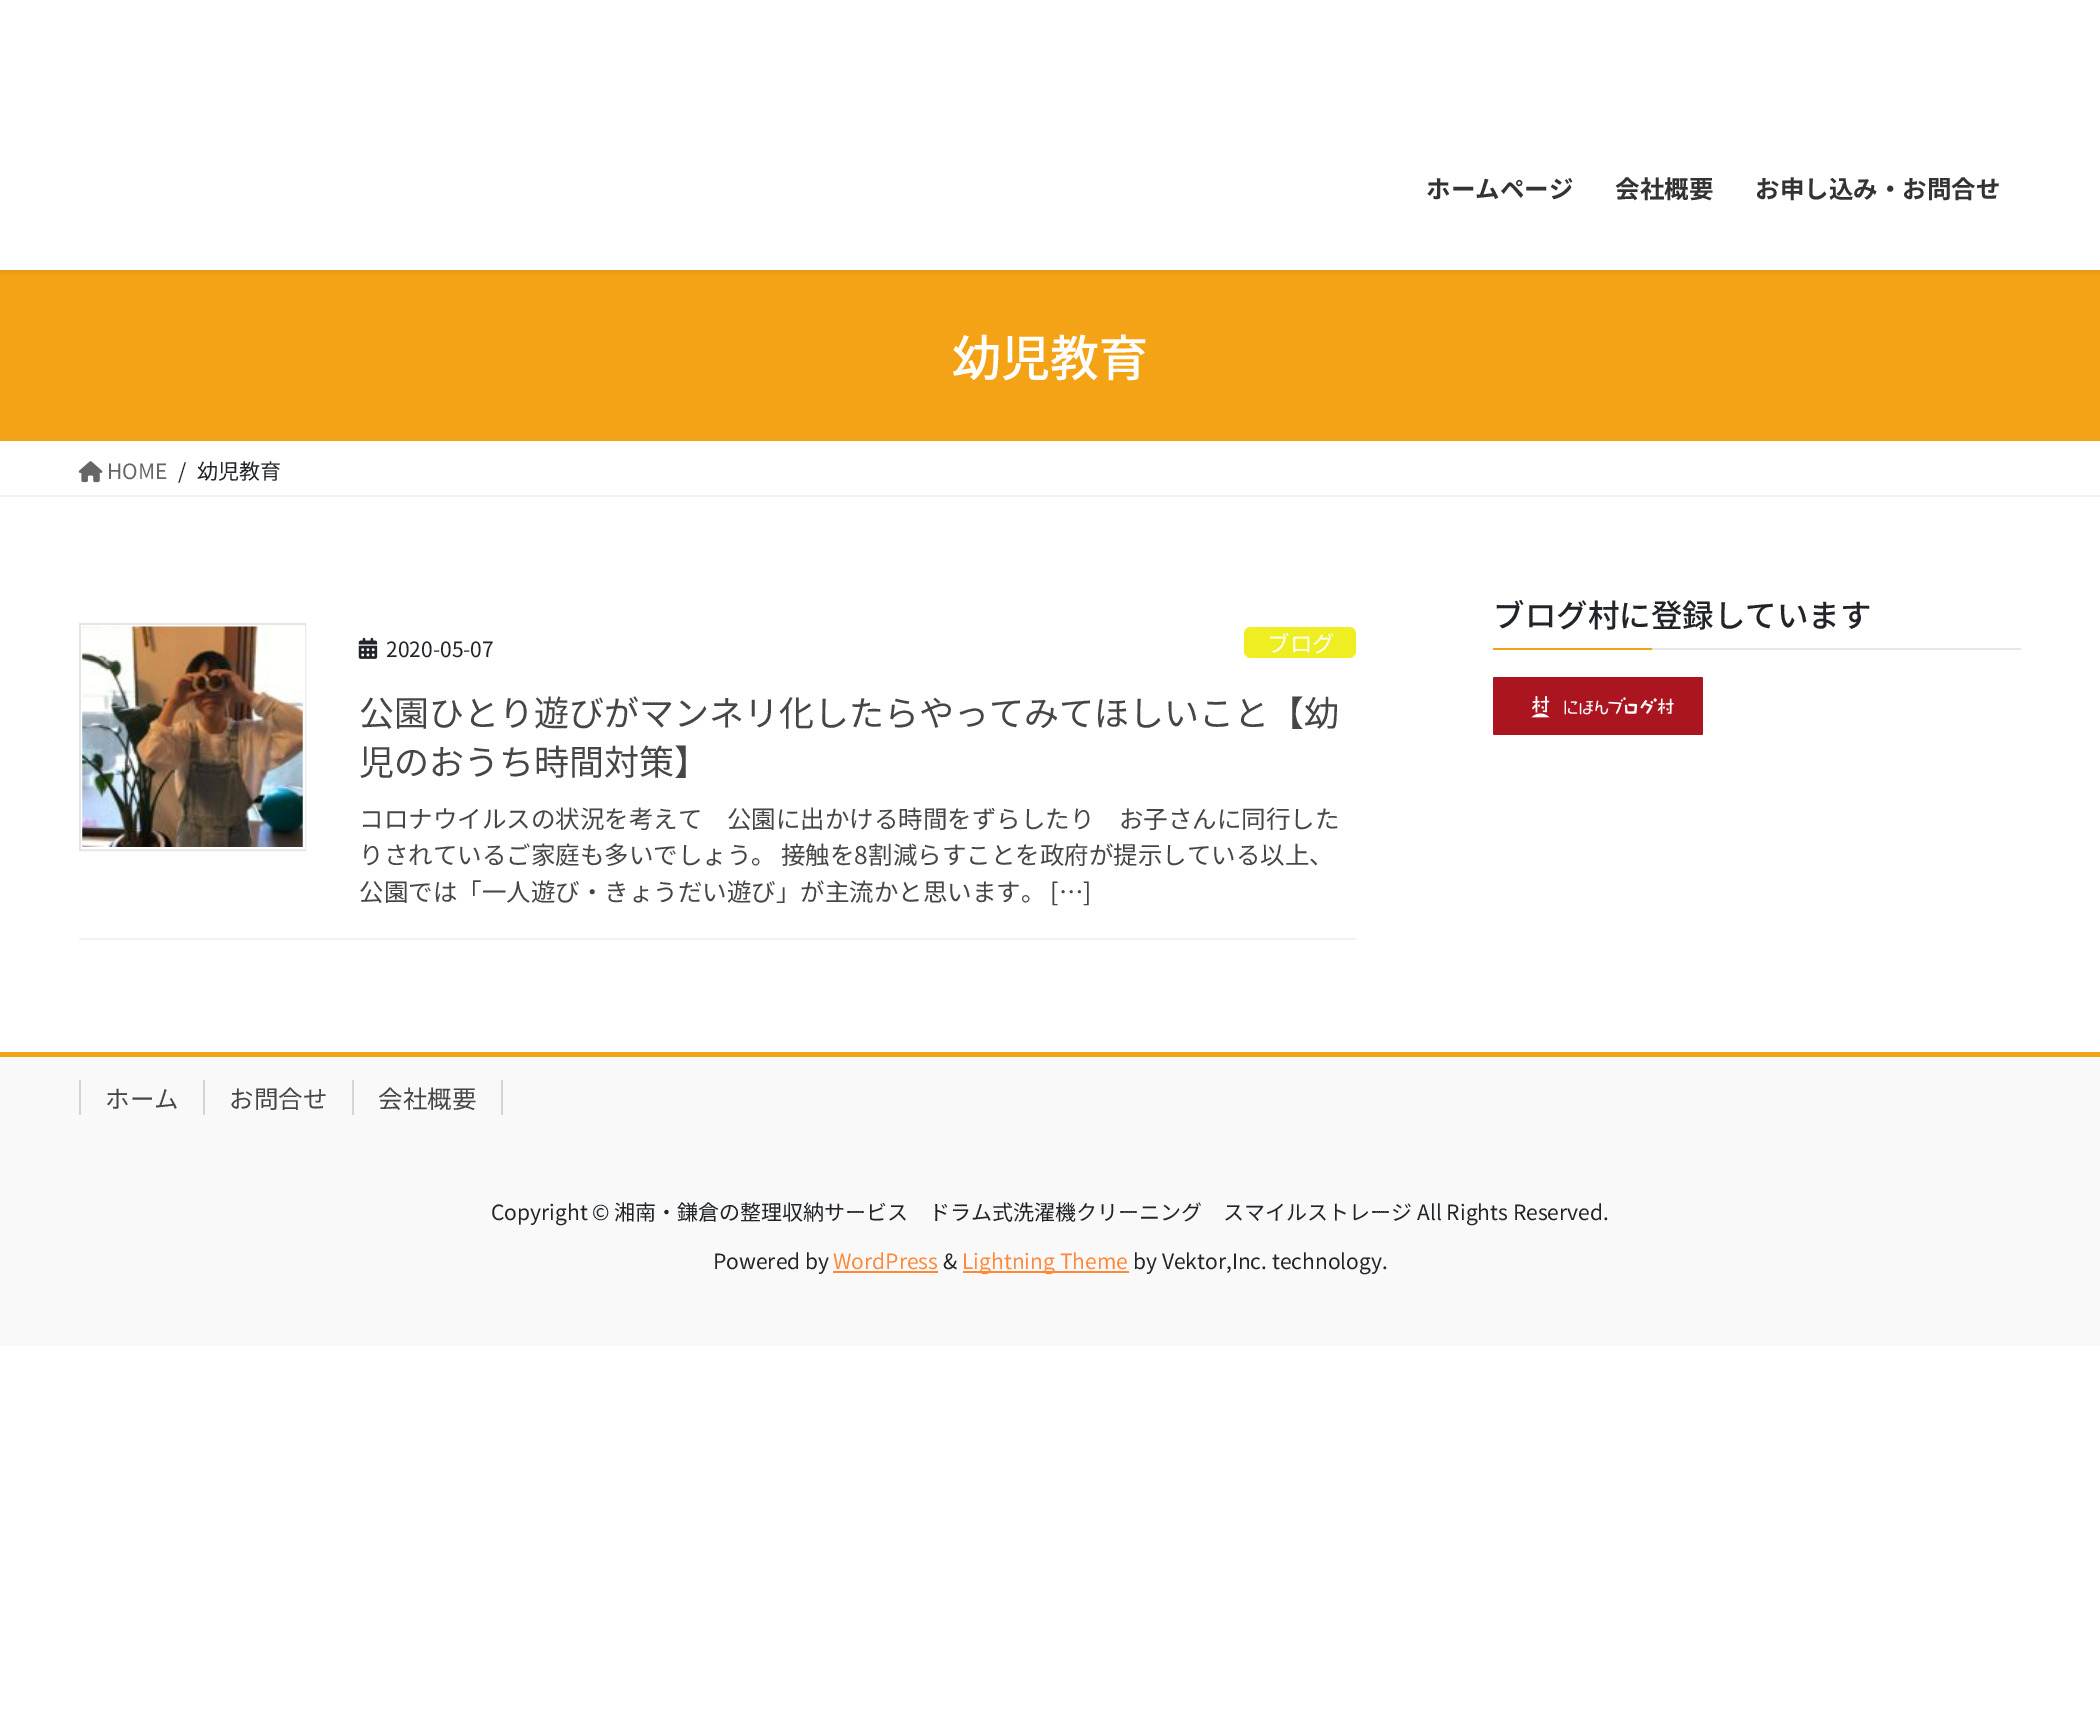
%!PS
<< /PageSize [2100 1719] /PageUsesTransparency true >> setpagedevice
/fl/fill load def
/lw/setlinewidth load def
/co { dup -16 bitshift 255 div exch dup -8 bitshift 255 and 255 div exch 255 and 255 div setrgbcolor } def
/fn { [ exch dup neg 0 0 3 -1 roll 0 0 ] selectfont } def
/tx { co fn moveto show } def
/bx { co rectfill } def
/al { dup .setfillconstantalpha .setstrokeconstantalpha } def
/rr { 5 dict begin { /r /h /w /y /x } { exch def } forall
  x r add y moveto x w add y 2 copy h add r arct x w add y h add x 1 index r arct
  x y h add x y r arct x y 2 copy exch w add exch r arct closepath end } def
/sh { 12 dict begin { /a /b /q /h /w /y /x } { exch def } forall gsave /was 0 def
  9 -2 -9 { dup b mul 4 div /e exch def 1 sub .425 mul 2.718 exch exp 1 add a .99 .min exch div /now exch def
    1 1 now sub 1 was sub div sub al /was now def
    w h .min e 2 mul add 0 gt { x e sub y e sub w e 2 mul add h e 2 mul add
      q e add b .6 mul add w h .min 2 div e add .min 0 .max rr fill } if } for grestore end } def
/im { 5 dict begin { /h /w /y /x /name } { exch def } forall
  gsave x y translate w h scale
  w h 8 [w 0 0 h 0 0] name (r) file false 3 colorimage grestore end } def
0 .pushpdf14devicefilter
0 1719 translate 1 -1 scale
4 setmiterlimit
0 0 2100 1719 16#FFFFFF bx
0 270 2100 171 16#F4A316 bx
16#000000 co
0 2 2100 269 0 2.5 .1 sh
0 0 2100 270 16#FFFFFF bx
0 495 2100 2 16#F2F2F2 bx
(media/1.raw) 78 461 25 22 im
1652 648 369 2 16#E6E6E6 bx
1493 648 159 2 16#F4A316 bx
(media/2.raw) 1493 677 210 58 im
79 938 1277 2 16#F2F2F2 bx
16#E5E5E5 co
2 lw
80 624 225 226 rectstroke
16#FFFFFF co
82 626 222 222 rectstroke
(media/3.raw) 82 626 221 221 im
(media/4.raw) 358 637 20 22 im
16#EEEE22 co
1244 627 112 31 7 rr fl
0 1057 2100 289 16#F9F9F9 bx
0 1052 2100 5 16#F4A316 bx
79 1080 2 35 16#D4D4D4 bx
203 1080 2 35 16#D4D4D4 bx
501 1080 2 35 16#D4D4D4 bx
352 1080 2 35 16#D4D4D4 bx
833 1271 105 2 16#FF893A bx
963 1271 166 2 16#FF893A bx
(ホームページ) 1426 198 /NotoSansJP-Bold 24.5 16#333333 tx
(会社概要) 1615 198 /NotoSansJP-Bold 24.5 16#333333 tx
(お申し込み・お問合せ) 1755 198 /NotoSansJP-Bold 24.5 16#333333 tx
(幼児教育) 952 376 /NotoSansJP-Medium 49 16#FFFFFF tx
(HOME) 107 479 /NotoSansJP-Regular 21 16#666666 tx
(/) 178 479 /NotoSansJP-Regular 21 16#212529 tx
(幼児教育) 197 479 /NotoSansJP-Regular 21 16#212529 tx
(ブログ村に登録しています) 1493 627 /NotoSansJP-Medium 31.5 16#212529 tx
(2020-05-07) 386 657 /NotoSansJP-Regular 21 16#212529 tx
(ブログ) 1267 652 /NotoSansJP-Regular 22.5 16#FFFFFF tx
(公園ひとり遊びがマンネリ化したらやってみてほしいこと【幼) 359 726 /NotoSansJP-Regular 35 16#464646 tx
(児のおうち時間対策】) 359 775 /NotoSansJP-Regular 35 16#464646 tx
(コロナウイルスの状況を考えて　公園に出かける時間をずらしたり　お子さんに同行した) 359 828 /NotoSansJP-Regular 24.5 16#464646 tx
(りされているご家庭も多いでしょう。 接触を8割減らすことを政府が提示している以上、) 359 864 /NotoSansJP-Regular 24.5 16#464646 tx
(公園では「一人遊び・きょうだい遊び」が主流かと思います。 […]) 359 901 /NotoSansJP-Regular 24.5 16#464646 tx
(ホーム) 105 1108 /NotoSansJP-Regular 24.5 16#464646 tx
(お問合せ) 229 1108 /NotoSansJP-Regular 24.5 16#464646 tx
(会社概要) 378 1108 /NotoSansJP-Regular 24.5 16#464646 tx
(Copyright © 湘南・鎌倉の整理収納サービス　ドラム式洗濯機クリーニング　スマイルストレージ All Rights Reserved.) 491 1220 /NotoSansJP-Regular 21 16#212529 tx
(Powered by) 713 1269 /NotoSansJP-Regular 21 16#212529 tx
(WordPress) 833 1269 /NotoSansJP-Regular 21 16#FF893A tx
(&) 943 1269 /NotoSansJP-Regular 21 16#212529 tx
(Lightning Theme) 962 1269 /NotoSansJP-Regular 21 16#FF893A tx
(by Vektor,Inc. technology.) 1133 1269 /NotoSansJP-Regular 21 16#212529 tx
.poppdf14devicefilter showpage
